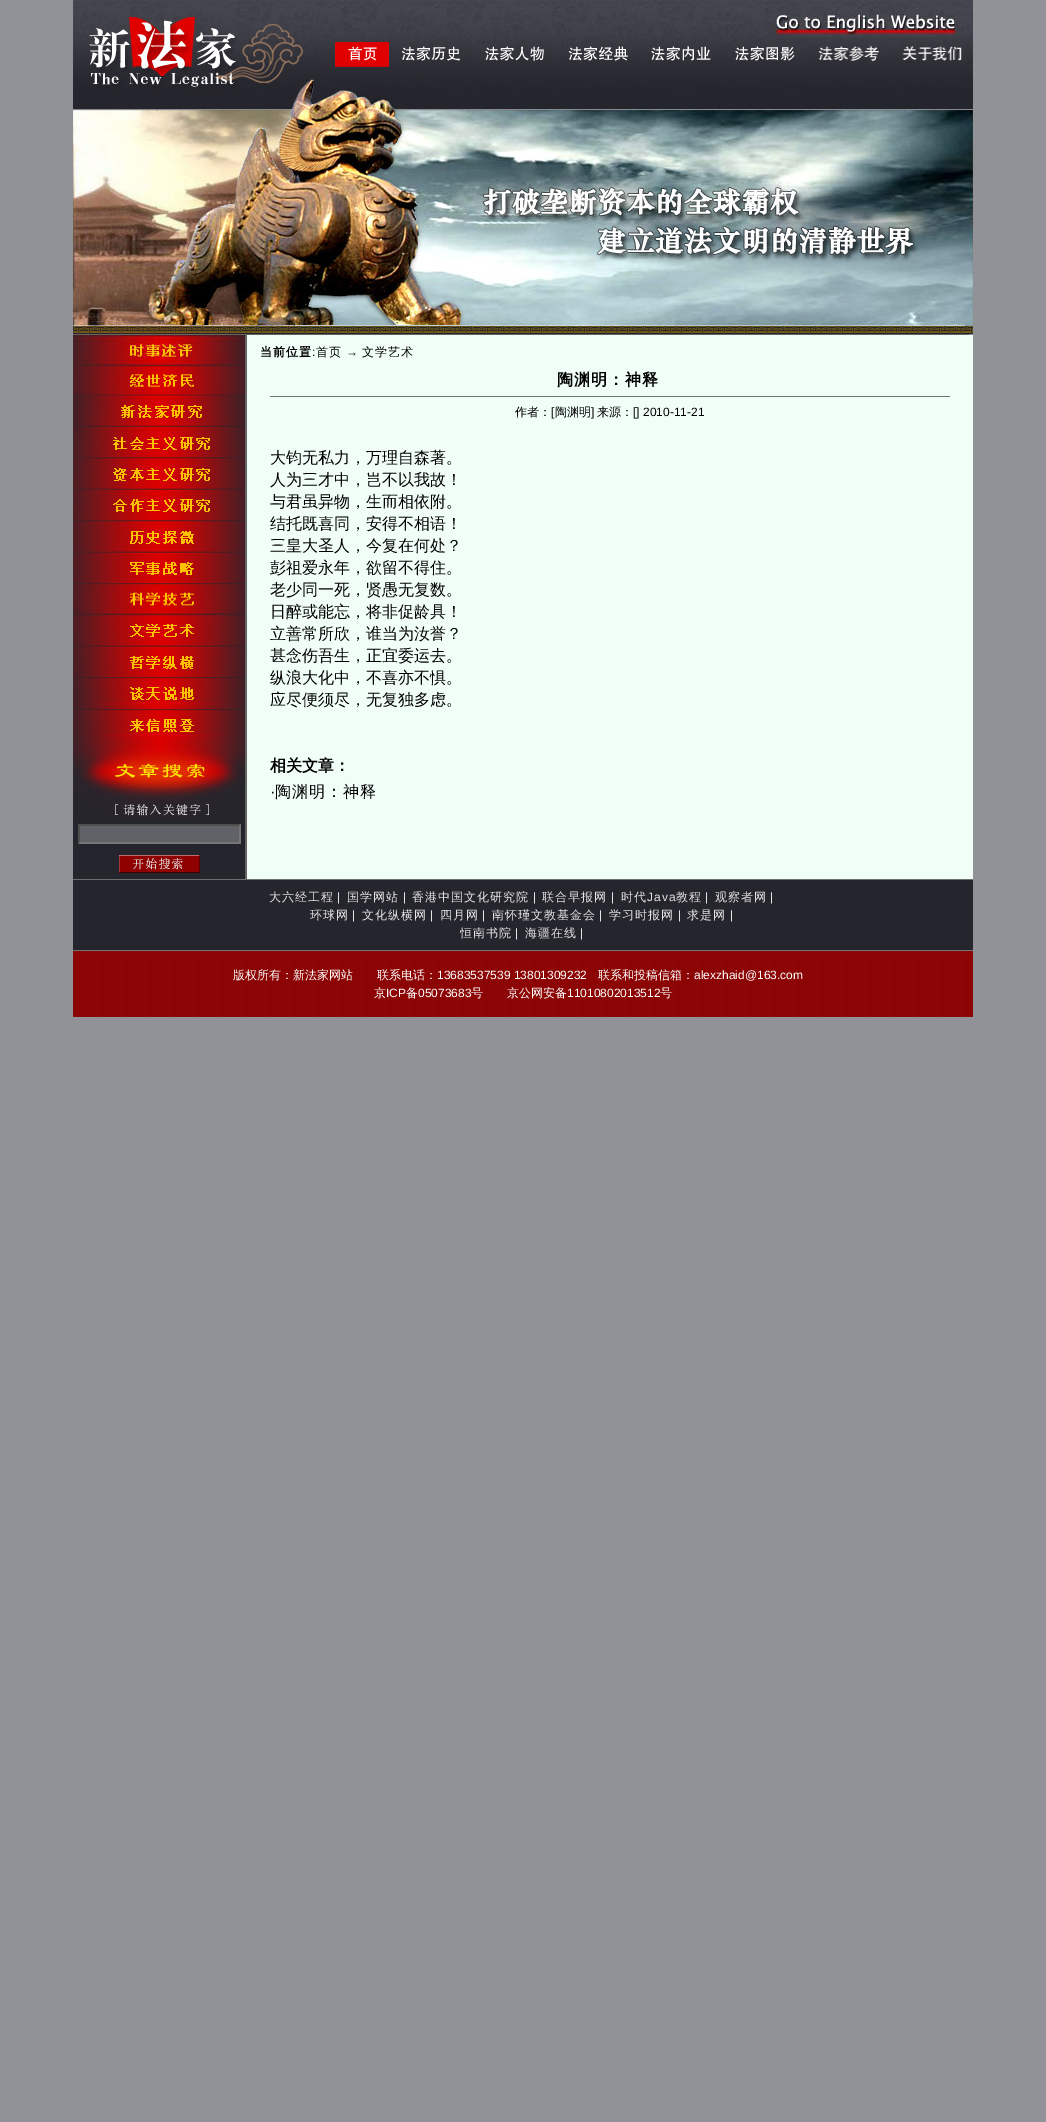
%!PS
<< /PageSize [1046 2122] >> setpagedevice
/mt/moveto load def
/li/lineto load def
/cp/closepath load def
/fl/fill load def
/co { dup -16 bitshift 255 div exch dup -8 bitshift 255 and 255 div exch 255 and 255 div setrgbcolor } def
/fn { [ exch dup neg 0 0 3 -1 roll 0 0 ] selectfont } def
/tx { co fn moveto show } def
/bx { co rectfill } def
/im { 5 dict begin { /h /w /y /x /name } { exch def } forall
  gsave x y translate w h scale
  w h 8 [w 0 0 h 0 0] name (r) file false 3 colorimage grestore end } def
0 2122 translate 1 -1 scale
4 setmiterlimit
0 0 1046 2122 16#919198 bx
(media/1.raw) 73 0 234 109 im
(media/2.raw) 307 0 666 37 im
(media/3.raw) 307 37 666 72 im
(media/4.raw) 335 42 54 25 im
(media/5.raw) 399 42 73 19 im
(media/6.raw) 485 45 67 16 im
(media/7.raw) 568 42 60 19 im
(media/8.raw) 651 43 60 18 im
(media/9.raw) 733 42 63 19 im
(media/10.raw) 810 46 71 15 im
(media/11.raw) 897 42 76 22 im
(media/12.raw) 73 109 900 217 im
(media/13.raw) 73 326 900 8 im
73 334 896 1 16#646464 bx
73 819 172 60 16#25252D bx
(media/14.raw) 73 335 172 30 im
(media/15.raw) 73 365 172 30 im
(media/16.raw) 73 395 172 30 im
(media/17.raw) 73 425 172 31 im
(media/18.raw) 73 456 172 33 im
(media/19.raw) 73 489 172 30 im
(media/20.raw) 73 519 172 33 im
(media/21.raw) 73 552 172 31 im
(media/22.raw) 73 583 172 31 im
(media/23.raw) 73 614 172 32 im
(media/24.raw) 73 646 172 31 im
(media/25.raw) 73 677 172 32 im
(media/26.raw) 73 709 172 32 im
(media/27.raw) 73 741 172 78 im
78 824 163 20 16#616168 bx
16#4F4F4F co
78 824 mt 241 824 li 239 826 li 80 826 li cp fl
16#767676 co
241 824 mt 241 844 li 239 842 li 239 826 li cp fl
241 844 mt 78 844 li 80 842 li 239 842 li cp fl
16#4F4F4F co
78 844 mt 78 824 li 80 826 li 80 842 li cp fl
(media/28.raw) 119 855 81 18 im
245 335 2 544 16#646464 bx
247 335 726 544 16#F1FEF7 bx
270 396 680 1 16#727272 bx
73 879 900 1 16#6E6E6F bx
73 880 900 70 16#25252D bx
(media/29.raw) 73 950 900 67 im
/WenQuanYiZenHei-Bold 12 fn
16#000000 co
260 356 mt 1 0 (当前位置) ashow
/LiberationSans-Regular 12 fn
312 356 mt 1 0 (:) ashow
/WenQuanYiZenHei-Medium 12 fn
316 356 mt 1 0 (首页) ashow
/LiberationSans-Regular 12 fn
346 356 mt 1 0 (→) ashow
/WenQuanYiZenHei-Medium 12 fn
362 356 mt 1 0 (文学艺术) ashow
/WenQuanYiZenHei-Bold 16 fn
557 385 mt 1 0 (陶渊明：神释) ashow
(作者： 陶渊明) 515 416 /WenQuanYiZenHei-Medium 12 16#000000 tx
(来源：) 597 416 /WenQuanYiZenHei-Medium 12 16#000000 tx
([) 551 416 /LiberationSans-Regular 12 16#000000 tx
(]) 591 416 /LiberationSans-Regular 12 16#000000 tx
([] 2010-11-21) 633 416 /LiberationSans-Regular 12 16#000000 tx
(大钧无私力，万理自森著。) 270 463 /WenQuanYiZenHei-Medium 16 16#000000 tx
(人为三才中，岂不以我故！) 270 485 /WenQuanYiZenHei-Medium 16 16#000000 tx
(与君虽异物，生而相依附。) 270 507 /WenQuanYiZenHei-Medium 16 16#000000 tx
(结托既喜同，安得不相语！) 270 529 /WenQuanYiZenHei-Medium 16 16#000000 tx
(三皇大圣人，今复在何处？) 270 551 /WenQuanYiZenHei-Medium 16 16#000000 tx
(彭祖爱永年，欲留不得住。) 270 573 /WenQuanYiZenHei-Medium 16 16#000000 tx
(老少同一死，贤愚无复数。) 270 595 /WenQuanYiZenHei-Medium 16 16#000000 tx
(日醉或能忘，将非促龄具！) 270 617 /WenQuanYiZenHei-Medium 16 16#000000 tx
(立善常所欣，谁当为汝誉？) 270 639 /WenQuanYiZenHei-Medium 16 16#000000 tx
(甚念伤吾生，正宜委运去。) 270 661 /WenQuanYiZenHei-Medium 16 16#000000 tx
(纵浪大化中，不喜亦不惧。) 270 683 /WenQuanYiZenHei-Medium 16 16#000000 tx
(应尽便须尽，无复独多虑。) 270 705 /WenQuanYiZenHei-Medium 16 16#000000 tx
(相关文章：) 270 771 /WenQuanYiZenHei-Bold 16 16#000000 tx
(·) 270 797 /LiberationSans-Regular 16 16#000000 tx
/WenQuanYiZenHei-Medium 16 fn
275 797 mt 1 0 (陶渊明：神释) ashow
/WenQuanYiZenHei-Medium 12 fn
16#E6E6E6 co
269 901 mt 1 0 (大六经工程) ashow
(|) 337 901 /LiberationSans-Regular 12 16#E6E6E6 tx
/WenQuanYiZenHei-Medium 12 fn
347 901 mt 1 0 (国学网站) ashow
(|) 403 901 /LiberationSans-Regular 12 16#E6E6E6 tx
/WenQuanYiZenHei-Medium 12 fn
412 901 mt 1 0 (香港中国文化研究院) ashow
(|) 533 901 /LiberationSans-Regular 12 16#E6E6E6 tx
/WenQuanYiZenHei-Medium 12 fn
542 901 mt 1 0 (联合早报网) ashow
(|) 611 901 /LiberationSans-Regular 12 16#E6E6E6 tx
/WenQuanYiZenHei-Medium 12 fn
621 901 mt 1 0 (时代) ashow
/LiberationSans-Regular 12 fn
647 901 mt 1 0 (Java) ashow
/WenQuanYiZenHei-Medium 12 fn
676 901 mt 1 0 (教程) ashow
(|) 705 901 /LiberationSans-Regular 12 16#E6E6E6 tx
/WenQuanYiZenHei-Medium 12 fn
715 901 mt 1 0 (观察者网) ashow
(|) 770 901 /LiberationSans-Regular 12 16#E6E6E6 tx
/WenQuanYiZenHei-Medium 12 fn
310 919 mt 1 0 (环球网) ashow
(|) 352 919 /LiberationSans-Regular 12 16#E6E6E6 tx
/WenQuanYiZenHei-Medium 12 fn
362 919 mt 1 0 (文化纵横网) ashow
(|) 430 919 /LiberationSans-Regular 12 16#E6E6E6 tx
/WenQuanYiZenHei-Medium 12 fn
440 919 mt 1 0 (四月网) ashow
(|) 482 919 /LiberationSans-Regular 12 16#E6E6E6 tx
/WenQuanYiZenHei-Medium 12 fn
492 919 mt 1 0 (南怀瑾文教基金会) ashow
(|) 599 919 /LiberationSans-Regular 12 16#E6E6E6 tx
/WenQuanYiZenHei-Medium 12 fn
609 919 mt 1 0 (学习时报网) ashow
(|) 678 919 /LiberationSans-Regular 12 16#E6E6E6 tx
/WenQuanYiZenHei-Medium 12 fn
687 919 mt 1 0 (求是网) ashow
(|) 730 919 /LiberationSans-Regular 12 16#E6E6E6 tx
/WenQuanYiZenHei-Medium 12 fn
460 937 mt 1 0 (恒南书院) ashow
(|) 515 937 /LiberationSans-Regular 12 16#E6E6E6 tx
/WenQuanYiZenHei-Medium 12 fn
525 937 mt 1 0 (海疆在线) ashow
(|) 580 937 /LiberationSans-Regular 12 16#E6E6E6 tx
(版权所有：新法家网站　　联系电话：) 233 979 /WenQuanYiZenHei-Medium 12 16#FFFFFF tx
(13683537539 13801309232) 437 979 /LiberationSans-Regular 12 16#FFFFFF tx
(联系和投稿信箱：) 598 979 /WenQuanYiZenHei-Medium 12 16#FFFFFF tx
(alexzhaid@163.com) 694 979 /LiberationSans-Regular 12 16#FFFFFF tx
(京) 374 997 /WenQuanYiZenHei-Medium 12 16#FFFFFF tx
(ICP) 386 997 /LiberationSans-Regular 12 16#FFFFFF tx
(备) 406 997 /WenQuanYiZenHei-Medium 12 16#FFFFFF tx
(05073683) 418 997 /LiberationSans-Regular 12 16#FFFFFF tx
(号　　京公网安备) 471 997 /WenQuanYiZenHei-Medium 12 16#FFFFFF tx
(11010802013512) 567 997 /LiberationSans-Regular 12 16#FFFFFF tx
(号) 660 997 /WenQuanYiZenHei-Medium 12 16#FFFFFF tx
showpage
